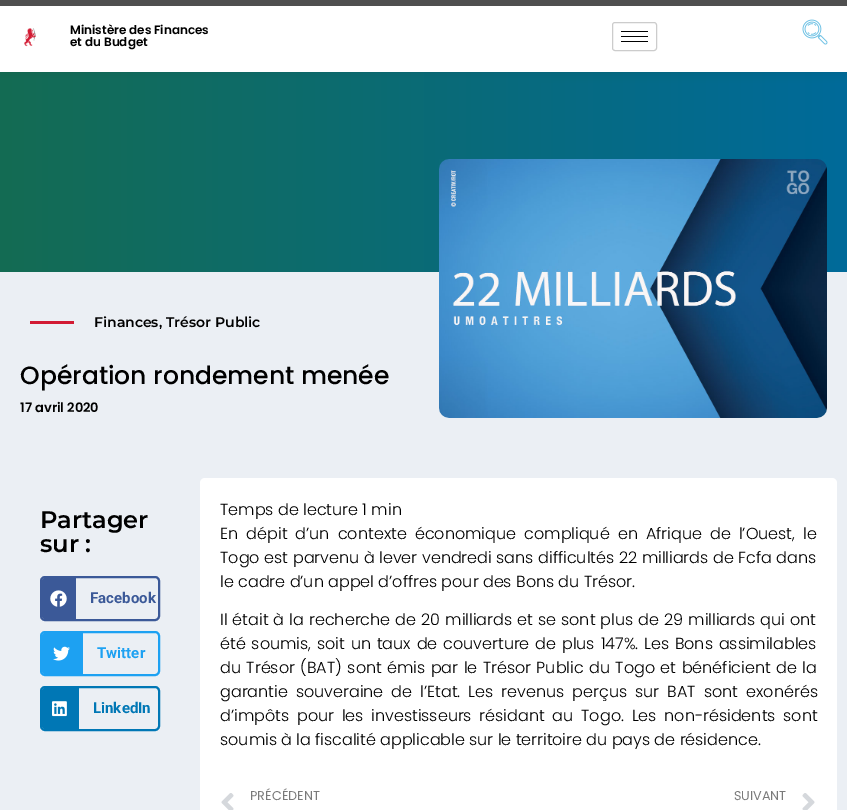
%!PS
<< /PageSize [847 810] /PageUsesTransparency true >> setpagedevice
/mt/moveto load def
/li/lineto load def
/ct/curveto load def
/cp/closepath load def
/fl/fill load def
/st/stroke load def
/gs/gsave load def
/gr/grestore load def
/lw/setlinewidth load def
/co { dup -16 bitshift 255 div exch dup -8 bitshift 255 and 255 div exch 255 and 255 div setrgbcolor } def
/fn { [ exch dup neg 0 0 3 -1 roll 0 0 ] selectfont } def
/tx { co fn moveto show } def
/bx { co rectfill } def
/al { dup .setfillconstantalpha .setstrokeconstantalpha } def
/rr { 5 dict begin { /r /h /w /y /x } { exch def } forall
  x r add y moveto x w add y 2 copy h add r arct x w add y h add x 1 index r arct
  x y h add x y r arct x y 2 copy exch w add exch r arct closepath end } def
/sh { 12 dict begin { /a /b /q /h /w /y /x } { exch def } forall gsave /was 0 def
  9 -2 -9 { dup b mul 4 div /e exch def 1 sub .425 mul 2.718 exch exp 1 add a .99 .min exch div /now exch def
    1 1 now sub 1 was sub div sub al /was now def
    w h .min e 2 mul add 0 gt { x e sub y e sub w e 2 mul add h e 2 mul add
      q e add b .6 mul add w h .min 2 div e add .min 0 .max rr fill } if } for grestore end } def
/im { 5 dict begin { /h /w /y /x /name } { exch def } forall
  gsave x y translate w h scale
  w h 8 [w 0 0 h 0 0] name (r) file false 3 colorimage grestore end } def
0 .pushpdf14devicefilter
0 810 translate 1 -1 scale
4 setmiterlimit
0 0 847 810 16#EBEFF4 bx
gs 0 72 mt 847 72 li 847 272 li 0 272 li cp clip newpath
<< /ShadingType 2 /ColorSpace /DeviceRGB /Coords [847 172 0 172] /Extend [true true] /Function << /FunctionType 2 /Domain [0 1] /C0 [0 .416 .604] /C1 [.078 .424 .325] /N 1 >> >> shfill gr
16#000000 co
0 0 847 72 0 5 .09 sh
0 0 847 6 16#4F4F4F bx
0 6 847 66 16#FFFFFF bx
(media/1.raw) 24 28 12 19 im
16#CCCCCC co
612.5 22.5 44 28 2.5 rr st
621 31 27 1 16#000000 bx
621 36 27 1 16#000000 bx
621 41 27 1 16#000000 bx
(media/2.raw) 802 19 26 26 im
30 321 44 3 16#D21B33 bx
(media/3.raw) 439 159 388 259 im
16#3B5998 co
2 lw
41 577 118 43 4 rr st
45 578 mt 76 578 li 76 619 li 45 619 li 43.5 619 42 617.5 42 616 ct 42 581 li 42 579.5 43.5 578 45 578 ct cp fl
(media/4.raw) 50 590 17 17 im
16#1DA1F2 co
41 632 118 43 4 rr st
45 633 mt 83 633 li 83 674 li 45 674 li 43.5 674 42 672.5 42 671 ct 42 636 li 42 634.5 43.5 633 45 633 ct cp fl
(media/5.raw) 53 646 17 15 im
16#0077B5 co
41 687 118 43 4 rr st
45 688 mt 79 688 li 79 729 li 45 729 li 43.5 729 42 727.5 42 726 ct 42 691 li 42 689.5 43.5 688 45 688 ct cp fl
(media/6.raw) 52 701 15 16 im
16#FFFFFF co
200 478 637 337 5 rr fl
(media/7.raw) 221 793 13 17 im
(media/8.raw) 802 793 13 17 im
(Ministère des Finances) 70 34 /Poppins-SemiBold 12 16#000000 tx
(et du Budget) 70 46 /Poppins-SemiBold 12 16#000000 tx
(Finances, Trésor Public) 94 327 /Montserrat-SemiBold 14 16#000000 tx
(Opération rondement menée) 20 384 /Poppins-Medium 25 16#000000 tx
(17 avril 2020) 20 412 /Poppins-SemiBold 13 16#000000 tx
(Partager) 40 528 /Montserrat-SemiBold 24 16#000000 tx
(sur :) 40 552 /Montserrat-SemiBold 24 16#000000 tx
(Facebook) 90 603 /Roboto-Bold 15 16#3B5998 tx
(Twitter) 97 658 /Roboto-Bold 15 16#1DA1F2 tx
(LinkedIn) 93 713 /Roboto-Bold 15 16#0077B5 tx
(Temps de lecture 1 min) 220 515 /Poppins-Light 16 16#000000 tx
220 539 mt 3.75 0 32 (En dépit d’un contexte économique compliqué en Afrique de l’Ouest, le) widthshow
220 563 mt .25 0 32 (Togo est parvenu à lever vendredi sans difficultés 22 milliards de Fcfa dans) widthshow
(le cadre d’un appel d’offres pour des Bons du Trésor.) 220 587 /Poppins-Light 16 16#000000 tx
220 625 mt .75 0 32 (Il était à la recherche de 20 milliards et se sont plus de 29 milliards qui ont) widthshow
220 649 mt 1.5 0 32 (été soumis, soit un taux de couverture de plus 147%. Les Bons assimilables) widthshow
220 673 mt 1.1 0 32 (du Trésor \(BAT\) sont émis par le Trésor Public du Togo et bénéficient de la) widthshow
220 697 mt 3.75 0 32 (garantie souveraine de l’Etat. Les revenus perçus sur BAT sont exonérés) widthshow
220 721 mt 3.5 0 32 (d’impôts pour les investisseurs résidant au Togo. Les non-résidents sont) widthshow
(soumis à la fiscalité applicable sur le territoire du pays de résidence.) 220 745 /Poppins-Light 16 16#000000 tx
(PRÉCÉDENT) 250 800 /Poppins-Regular 12.75 16#7A7A7A tx
(SUIVANT) 734 800 /Poppins-Regular 12.75 16#7A7A7A tx
.poppdf14devicefilter showpage
